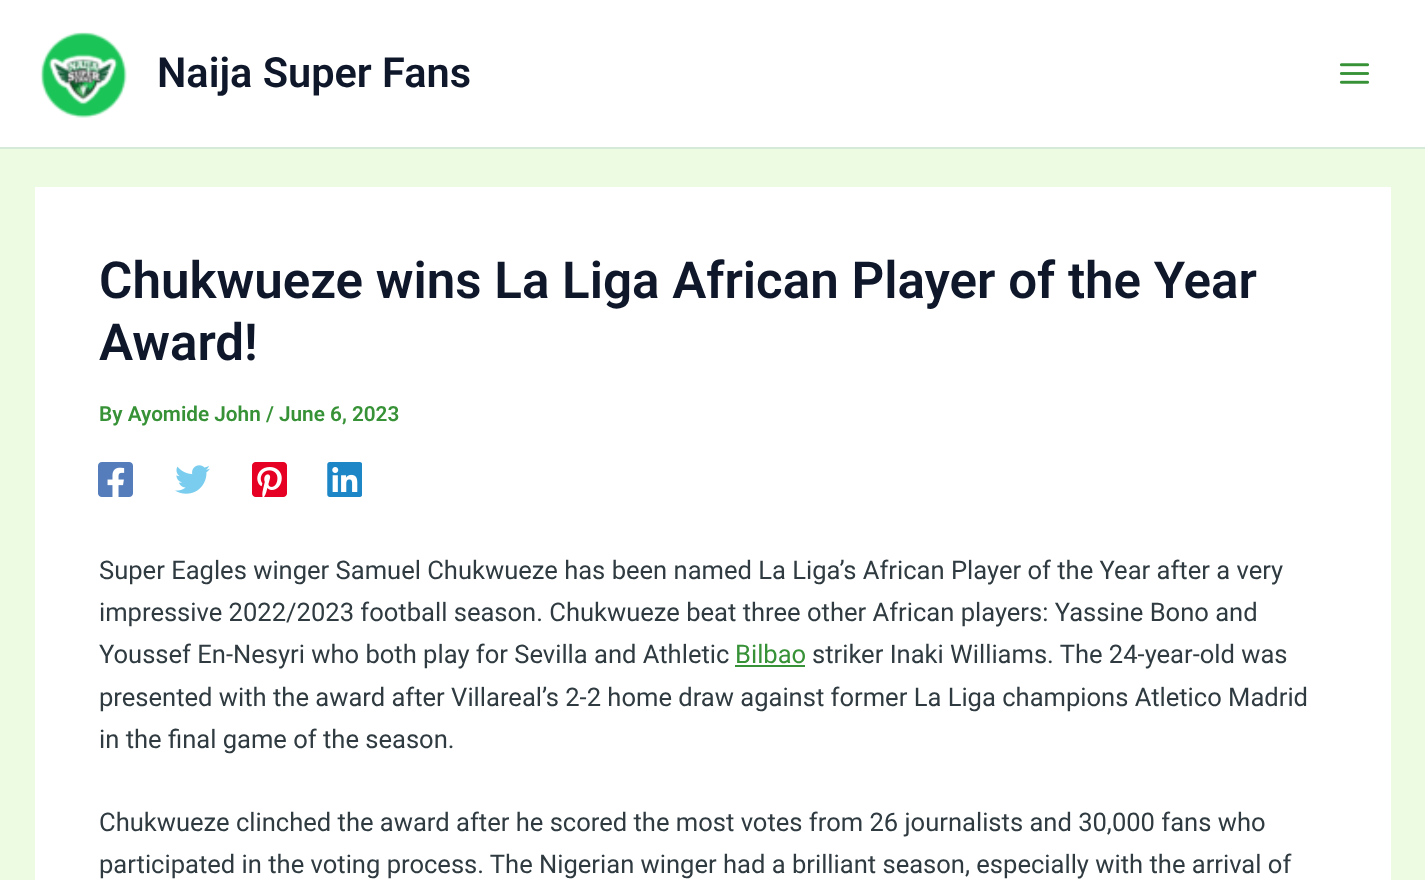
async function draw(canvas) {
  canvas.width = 1425;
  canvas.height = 880;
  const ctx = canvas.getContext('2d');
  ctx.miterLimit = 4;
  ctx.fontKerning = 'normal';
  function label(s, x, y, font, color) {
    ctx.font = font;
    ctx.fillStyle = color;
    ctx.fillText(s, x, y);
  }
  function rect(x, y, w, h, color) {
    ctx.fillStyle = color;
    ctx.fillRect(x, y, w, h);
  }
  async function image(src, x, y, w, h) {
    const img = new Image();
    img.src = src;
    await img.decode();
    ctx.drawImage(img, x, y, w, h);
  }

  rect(0, 0, 1425, 880, '#edfbe2');
  rect(0, 0, 1425, 147, '#fff');
  rect(0, 147, 1425, 2, '#d5ead8');
  await image('assets/img1.png', 40, 32, 87, 86);
  label('Naija Super Fans', 157, 87, '600 41.5px Roboto', '#0f172a');
  await image('assets/img2.png', 1339, 63, 31, 21);
  rect(35, 187, 1356, 693, '#fff');
  label('Chukwueze wins La Liga African Player of the Year', 99, 298, '600 51.1px Roboto', '#0f172a');
  label('Award!', 99, 360, '600 51.1px Roboto', '#0f172a');
  label('By Ayomide John / June 6, 2023', 99, 421, '600 20.75px Roboto', '#379237');
  await image('assets/img3.png', 98, 462, 35, 35);
  await image('assets/img4.png', 175, 465, 35, 29);
  await image('assets/img5.png', 252, 462, 35, 35);
  await image('assets/img6.png', 327, 462, 35, 35);
  label('Super Eagles winger Samuel Chukwueze has been named La Liga’s African Player of the Year after a very', 99, 579, '25.55px Roboto', '#2f3b40');
  label('impressive 2022/2023 football season. Chukwueze beat three other African players: Yassine Bono and', 99, 621, '25.55px Roboto', '#2f3b40');
  label('Youssef En-Nesyri who both play for Sevilla and Athletic', 99, 663, '25.55px Roboto', '#2f3b40');
  label('Bilbao', 735, 663, '25.55px Roboto', '#379237');
  rect(735, 665, 70, 2, '#379237');
  label('striker Inaki Williams. The 24-year-old was', 812, 663, '25.55px Roboto', '#2f3b40');
  label('presented with the award after Villareal’s 2-2 home draw against former La Liga champions Atletico Madrid', 99, 706, '25.55px Roboto', '#2f3b40');
  label('in the final game of the season.', 99, 748, '25.55px Roboto', '#2f3b40');
  label('Chukwueze clinched the award after he scored the most votes from 26 journalists and 30,000 fans who', 99, 831, '25.55px Roboto', '#2f3b40');
  label('participated in the voting process. The Nigerian winger had a brilliant season, especially with the arrival of', 99, 873, '25.55px Roboto', '#2f3b40');
}

draw(document.querySelector('canvas'));
